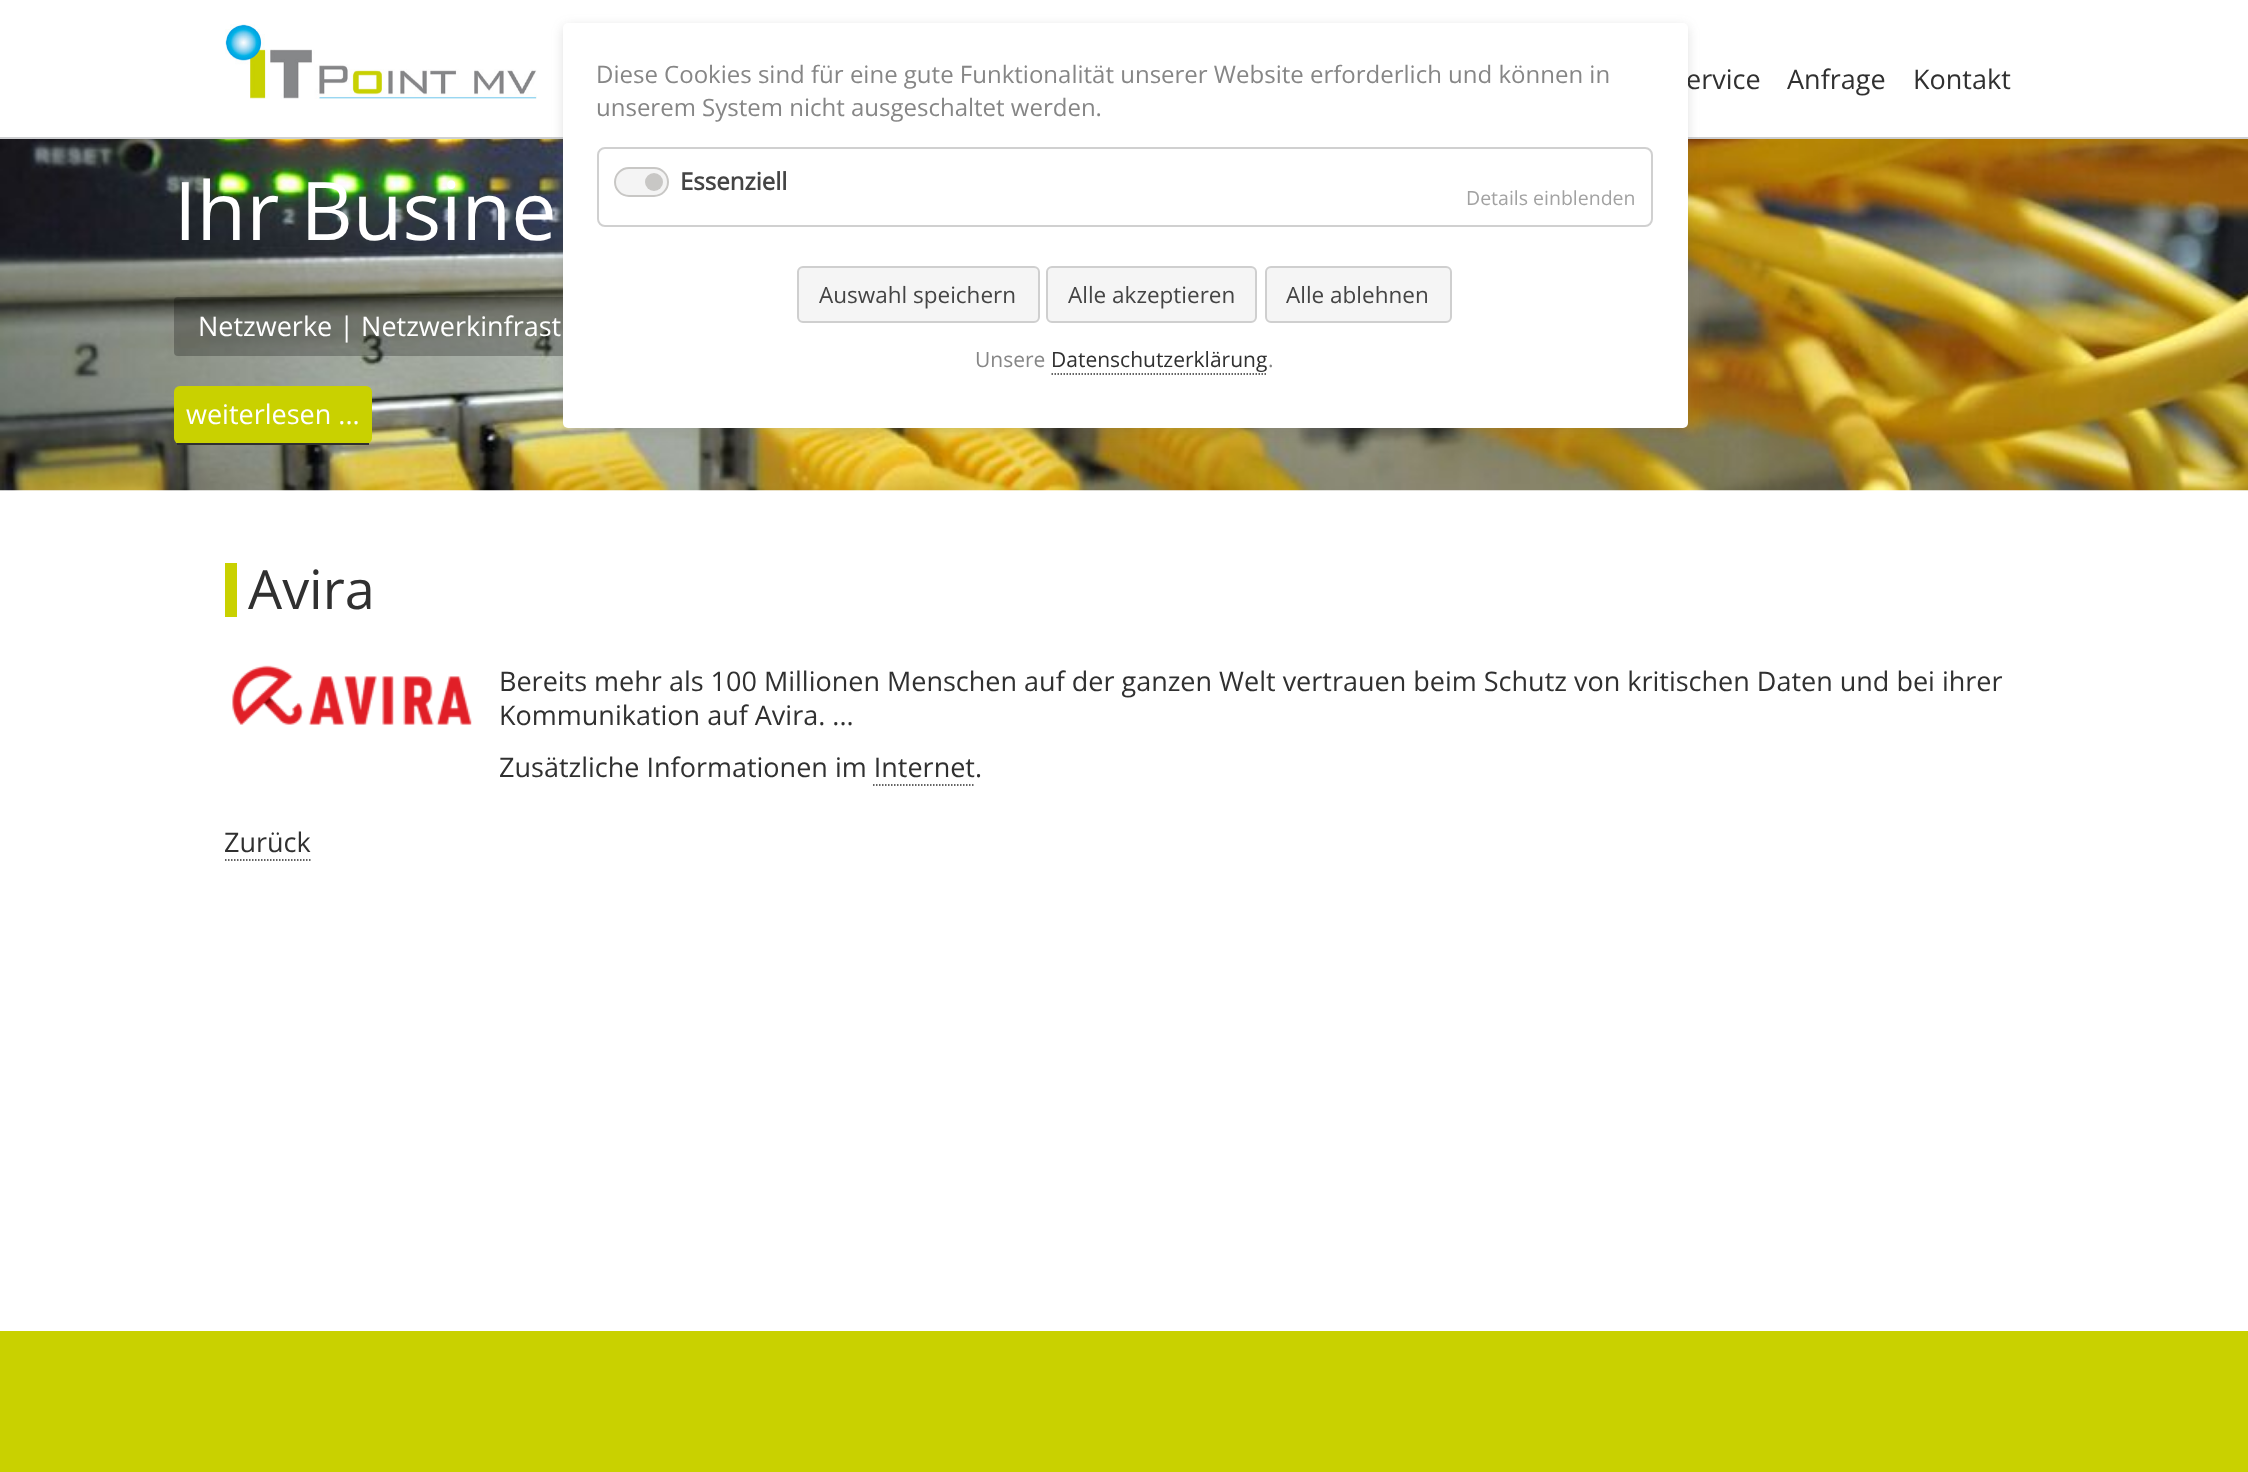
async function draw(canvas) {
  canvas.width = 2248;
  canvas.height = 1472;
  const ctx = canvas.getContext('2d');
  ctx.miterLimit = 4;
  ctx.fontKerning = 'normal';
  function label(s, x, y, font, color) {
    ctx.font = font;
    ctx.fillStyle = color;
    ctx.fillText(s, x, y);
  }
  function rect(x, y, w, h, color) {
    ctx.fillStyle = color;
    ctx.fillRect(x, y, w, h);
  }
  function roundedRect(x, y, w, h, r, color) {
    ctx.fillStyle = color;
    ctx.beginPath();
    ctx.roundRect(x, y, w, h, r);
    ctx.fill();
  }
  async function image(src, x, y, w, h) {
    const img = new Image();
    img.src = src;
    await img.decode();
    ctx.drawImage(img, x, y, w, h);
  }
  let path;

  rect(0, 0, 2248, 1472, '#fff');
  rect(0, 137, 2248, 2, '#cecfd1');
  await image('assets/img2.png', 0, 139, 2248, 352);
  roundedRect(174, 297, 815, 59, 4, '#00000040');
  ctx.fillStyle = '#63636333';
  ctx.filter = 'blur(6px)';
  ctx.beginPath();
  ctx.roundRect(563, 26, 1125, 405, 5);
  ctx.fill();
  ctx.filter = 'none';
  label('ervice', 1686, 89, '27px Open Sans', '#303030');
  roundedRect(563, 23, 1125, 405, 5, '#fff');
  label('Diese Cookies sind für eine gute Funktionalität unserer Website erforderlich und können in', 596, 83, '24px Open Sans', '#868686');
  label('unserem System nicht ausgeschaltet werden.', 596, 116, '24px Open Sans', '#868686');
  ctx.beginPath();
  ctx.roundRect(598, 148, 1054, 78, 7);
  ctx.strokeStyle = '#d0d0d0';
  ctx.lineWidth = 2;
  ctx.stroke();
  ctx.fillStyle = '#f4f4f4';
  ctx.beginPath();
  ctx.roundRect(615, 168, 53, 28, 14);
  ctx.fill();
  ctx.strokeStyle = '#c8c7c5';
  ctx.stroke();
  label('Essenziell', 680, 190, 'bold 24px Open Sans', '#444');
  ctx.fillStyle = '#c8c7c5';
  ctx.beginPath();
  ctx.arc(654, 182, 9, 0, 2 * Math.PI);
  ctx.fill();
  label('Details einblenden', 1466, 205, '19.5px Open Sans', '#a2a2a2');
  ctx.fillStyle = '#f5f5f5';
  ctx.beginPath();
  ctx.roundRect(798, 267, 241, 55, 5);
  ctx.fill();
  ctx.strokeStyle = '#cfcfcf';
  ctx.stroke();
  label('Auswahl speichern', 819, 303, '22.5px Open Sans', '#444');
  ctx.fillStyle = '#f5f5f5';
  ctx.beginPath();
  ctx.roundRect(1047, 267, 209, 55, 5);
  ctx.fill();
  ctx.stroke();
  label('Alle akzeptieren', 1068, 303, '22.5px Open Sans', '#444');
  ctx.fillStyle = '#f5f5f5';
  ctx.beginPath();
  ctx.roundRect(1266, 267, 185, 55, 5);
  ctx.fill();
  ctx.stroke();
  label('Alle ablehnen', 1286, 303, '22.5px Open Sans', '#444');
  label('Unsere', 975, 367, '21px Open Sans', '#868686');
  label('Datenschutzerklärung', 1051, 367, '21px Open Sans', '#303030');
  path = new Path2D('M1051.5 374H1267.5');
  ctx.strokeStyle = '#303030';
  ctx.lineWidth = 1.5;
  ctx.setLineDash([1.5, 1.5]);
  ctx.stroke(path);
  label('.', 1268, 367, '21px Open Sans', '#868686');
  await image('assets/img1.png', 225, 24, 312, 75);
  label('Anfrage', 1787, 89, '27px Open Sans', '#303030');
  label('Kontakt', 1913, 89, '27px Open Sans', '#303030');
  label('Ihr Busine', 174, 240, '81px Open Sans', '#fff');
  label('Netzwerke | Netzwerkinfrast', 198, 336, '27px Open Sans', '#fff');
  roundedRect(174, 386, 198, 58, 6, '#c9d100');
  rect(177, 443, 192, 2, '#303030');
  label('weiterlesen ...', 186, 424, '27px Open Sans', '#fff');
  rect(225, 563, 12, 54, '#c9d100');
  label('Avira', 248, 609, '54px Open Sans', '#303030');
  await image('assets/img3.png', 232, 665, 240, 60);
  label('Bereits mehr als 100 Millionen Menschen auf der ganzen Welt vertrauen beim Schutz von kritischen Daten und bei ihrer', 499, 691, '27px Open Sans', '#303030');
  label('Kommunikation auf Avira. ...', 499, 725, '27px Open Sans', '#303030');
  label('Zusätzliche Informationen im Internet.', 499, 777, '27px Open Sans', '#303030');
  path = new Path2D('M873 785H975');
  ctx.stroke(path);
  label('Zurück', 224, 852, '27px Open Sans', '#303030');
  path = new Path2D('M225 860H310.5');
  ctx.stroke(path);
  rect(0, 1331, 2248, 141, '#c9d100');
}

draw(document.querySelector('canvas'));
